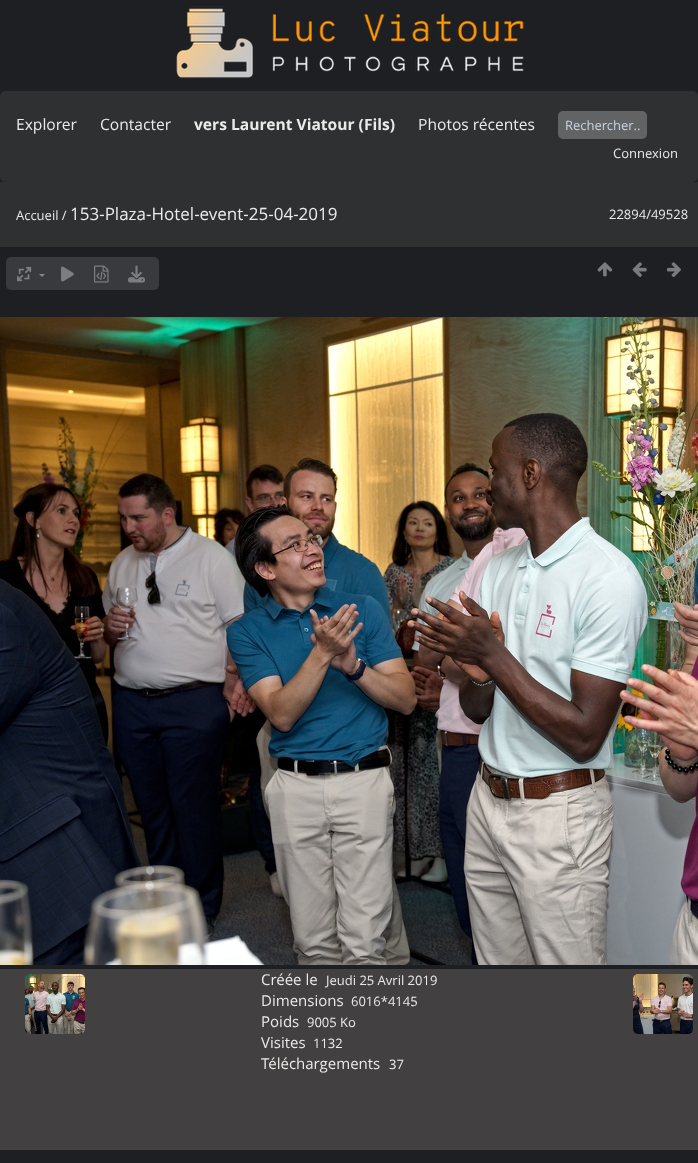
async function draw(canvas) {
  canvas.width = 698;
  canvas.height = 1163;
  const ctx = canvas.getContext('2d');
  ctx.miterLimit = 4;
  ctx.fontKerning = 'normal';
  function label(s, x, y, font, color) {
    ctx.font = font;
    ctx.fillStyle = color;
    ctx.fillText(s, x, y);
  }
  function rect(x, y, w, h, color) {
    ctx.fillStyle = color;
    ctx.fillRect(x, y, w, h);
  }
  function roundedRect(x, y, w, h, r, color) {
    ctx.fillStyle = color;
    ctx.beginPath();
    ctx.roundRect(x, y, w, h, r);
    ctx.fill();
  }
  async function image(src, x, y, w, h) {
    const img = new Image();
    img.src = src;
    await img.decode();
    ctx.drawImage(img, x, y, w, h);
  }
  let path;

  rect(0, 0, 698, 1163, '#1e1f23');
  await image('assets/img1.png', 176, 6, 348, 72);
  roundedRect(0, 91, 698, 91, 5, '#2f3032');
  label('Explorer', 16, 130, '15.6px Open Sans', '#eaeae9');
  label('Contacter', 100, 130, '15.6px Open Sans', '#eaeae9');
  label('vers Laurent Viatour (Fils)', 194, 130, 'bold 15.6px Open Sans', '#eaeae9');
  label('Photos récentes', 418, 130, '15.6px Open Sans', '#eaeae9');
  roundedRect(558, 111, 89, 28, 5, '#616364');
  label('Rechercher..', 565, 130, '13px Open Sans', '#c7d3e1');
  label('Connexion', 613, 158, '13px Open Sans', '#eaeae9');
  rect(0, 182, 698, 65, '#2f3032');
  label('Accueil /', 16, 220, '13px Open Sans', '#eaeae9');
  label('153-Plaza-Hotel-event-25-04-2019', 70, 220, '17px Open Sans', '#eaeae9');
  label('22894/49528', 609, 219, '13px Open Sans', '#eaeae9');
  roundedRect(6, 257, 153, 33, 5, '#393a3d');
  await image('assets/img2.png', 17, 266, 15, 16);
  ctx.fillStyle = '#848588';
  path = new Path2D('M39 274H45L42 277Z');
  ctx.fill(path);
  await image('assets/img3.png', 61, 266, 13, 16);
  await image('assets/img4.png', 94, 265, 15, 18);
  await image('assets/img5.png', 128, 265, 17, 18);
  await image('assets/img6.png', 597, 262, 16, 15);
  await image('assets/img7.png', 632, 262, 15, 15);
  await image('assets/img8.png', 667, 262, 14, 15);
  await image('assets/img9.png', 0, 317, 698, 648);
  rect(0, 969, 698, 181, '#424040');
  label('Créée le', 261, 985, '15px Open Sans', '#eaeae9');
  label('Jeudi 25 Avril 2019', 326, 985, '13px Open Sans', '#eaeae9');
  label('Dimensions', 261, 1006, '15px Open Sans', '#eaeae9');
  label('6016*4145', 351, 1006, '13px Open Sans', '#eaeae9');
  label('Poids', 261, 1027, '15px Open Sans', '#eaeae9');
  label('9005 Ko', 307, 1027, '13px Open Sans', '#eaeae9');
  label('Visites', 261, 1048, '15px Open Sans', '#eaeae9');
  label('1132', 313, 1048, '13px Open Sans', '#eaeae9');
  label('Téléchargements', 261, 1069, '15px Open Sans', '#eaeae9');
  label('37', 389, 1069, '13px Open Sans', '#eaeae9');
  await image('assets/img10.png', 25, 974, 60, 60);
  await image('assets/img11.png', 633, 974, 60, 60);
}

draw(document.querySelector('canvas'));
